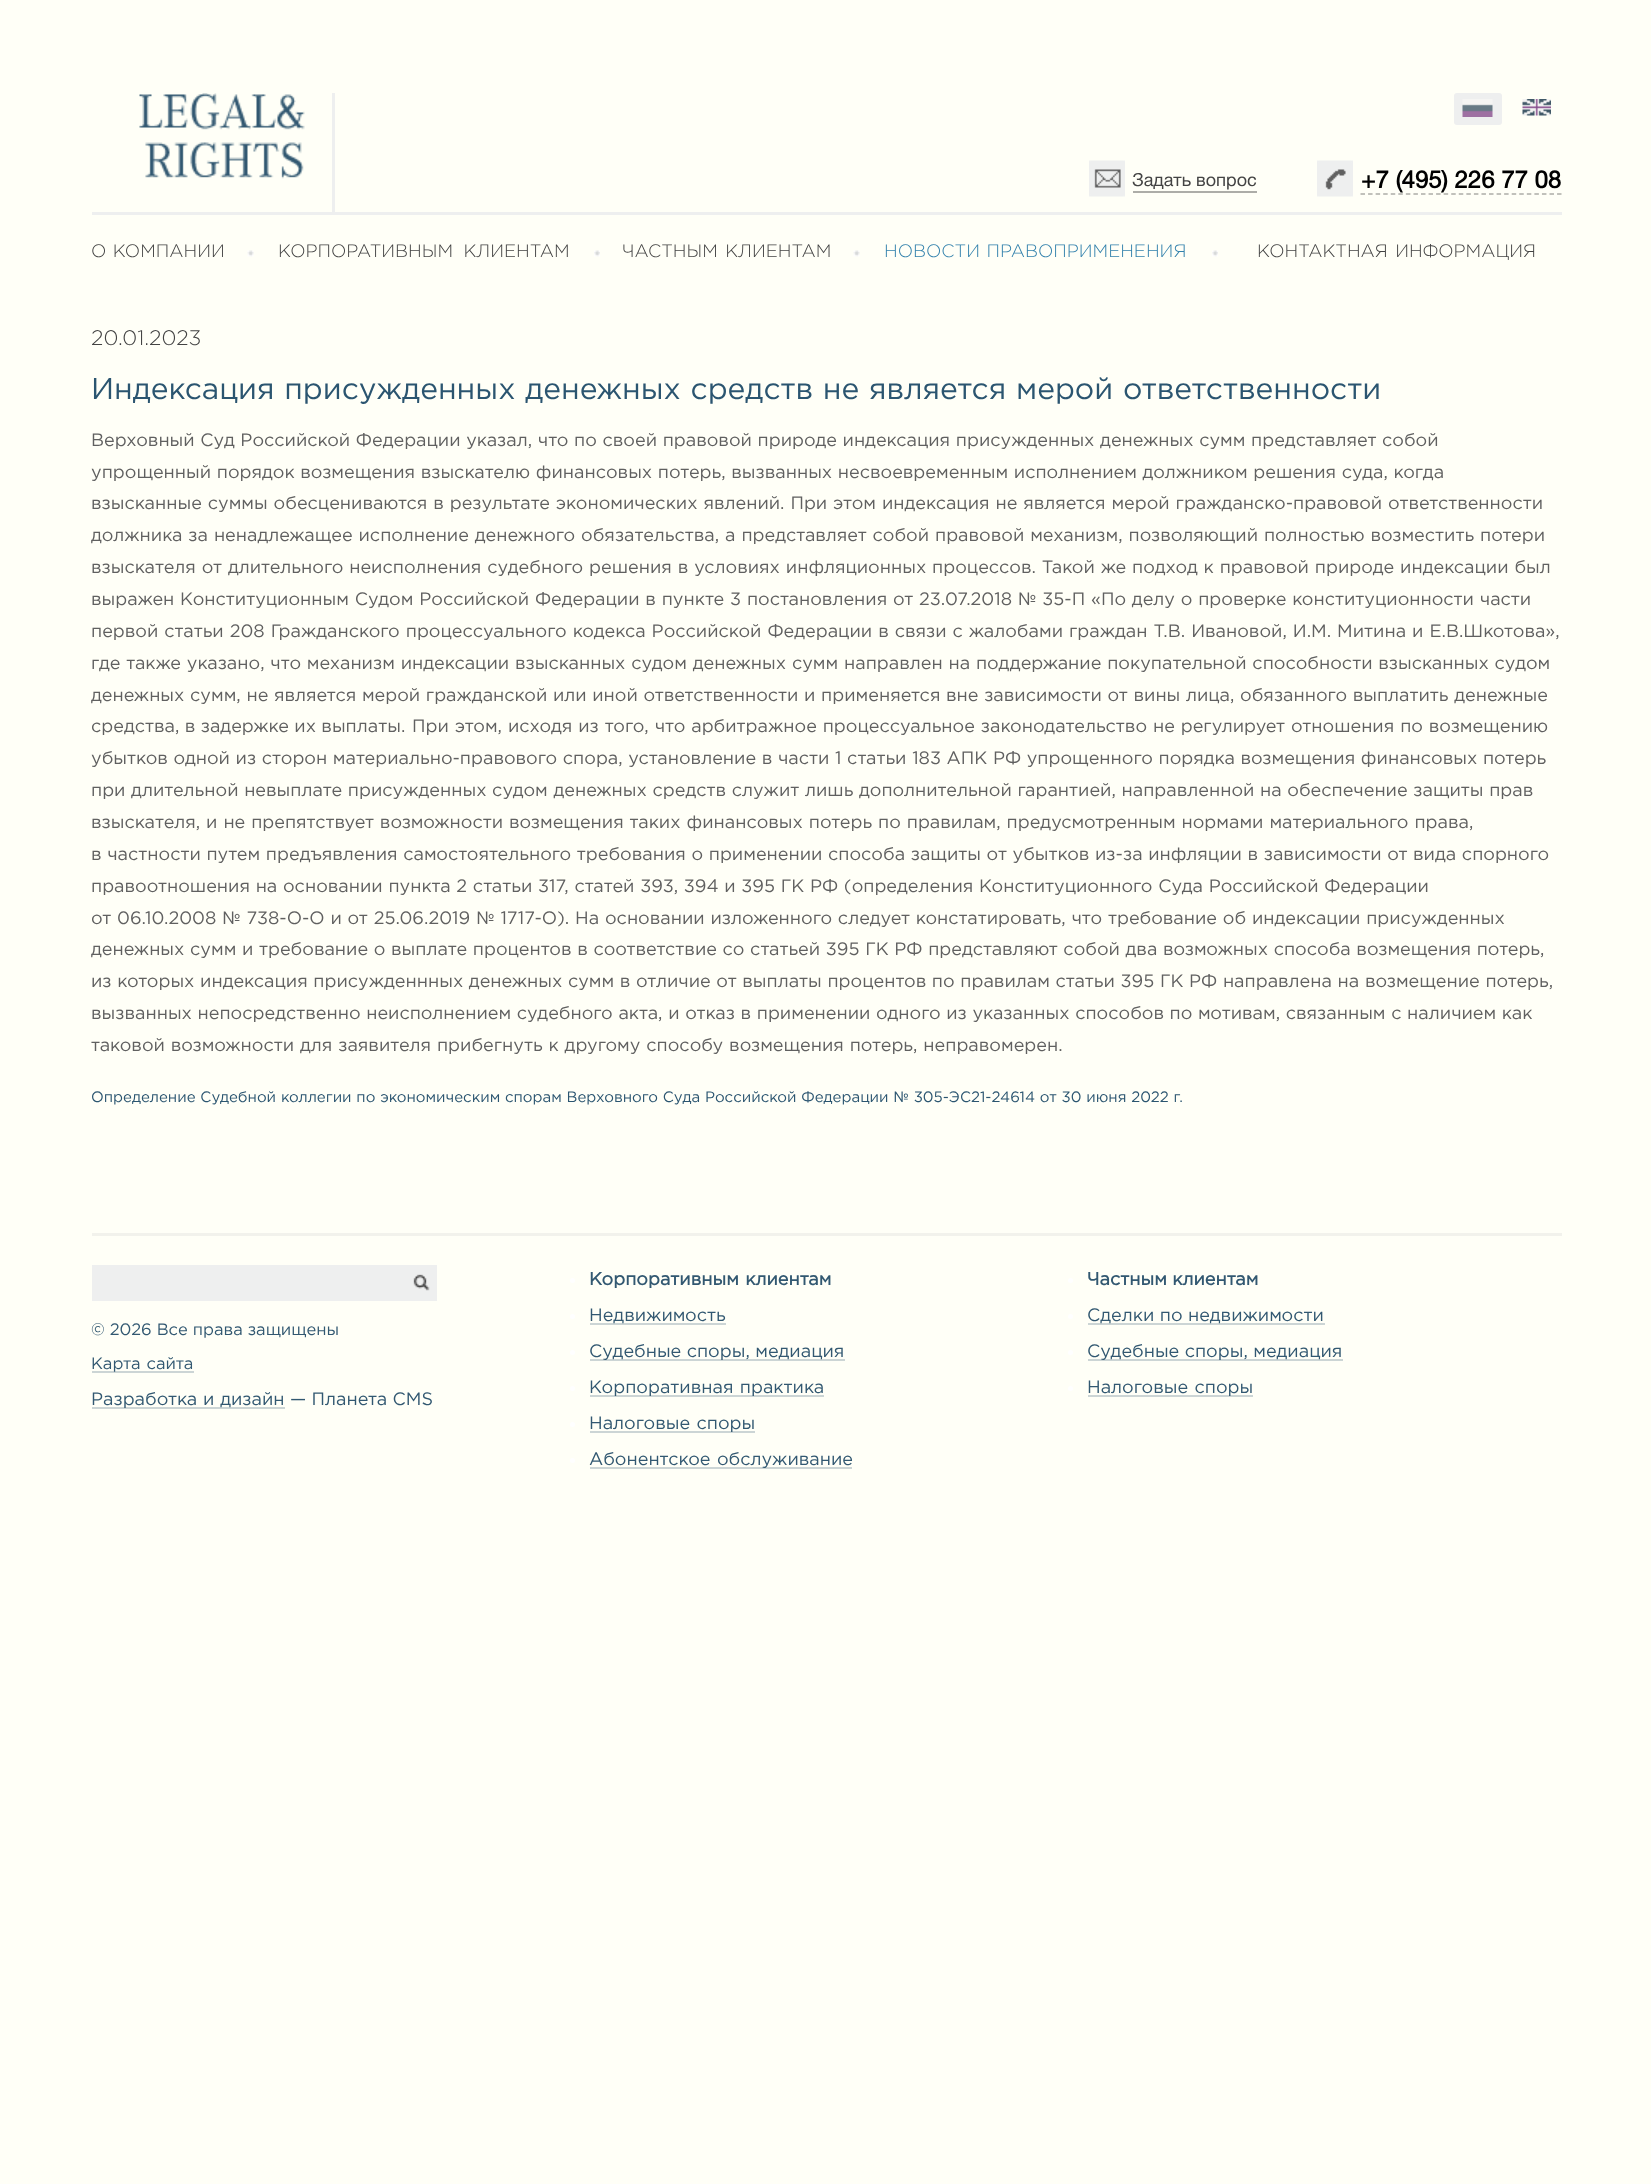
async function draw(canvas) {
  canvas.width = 1651;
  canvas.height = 2184;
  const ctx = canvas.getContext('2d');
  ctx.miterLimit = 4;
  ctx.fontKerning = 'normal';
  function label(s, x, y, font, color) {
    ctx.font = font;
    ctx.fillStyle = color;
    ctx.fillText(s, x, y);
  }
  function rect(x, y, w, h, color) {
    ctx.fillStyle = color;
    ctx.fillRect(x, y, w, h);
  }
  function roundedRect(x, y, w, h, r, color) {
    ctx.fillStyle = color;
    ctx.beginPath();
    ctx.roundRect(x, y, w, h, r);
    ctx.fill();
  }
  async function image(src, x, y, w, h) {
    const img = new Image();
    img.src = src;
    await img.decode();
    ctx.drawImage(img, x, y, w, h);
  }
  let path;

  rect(0, 0, 1651, 2184, '#fffff7');
  rect(92, 212, 1470, 3, '#eeefef');
  rect(332, 93, 3, 119, '#eeefef');
  await image('assets/img1.png', 139, 93, 166, 86);
  roundedRect(1454, 93, 48, 32, 3, '#eeefef');
  await image('assets/img2.png', 1462, 99, 31, 18);
  await image('assets/img3.png', 1522, 99, 29, 17);
  await image('assets/img4.png', 1089, 160, 36, 37);
  label('Задать вопрос', 1132, 186, '18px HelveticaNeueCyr', '#434343');
  rect(1133, 191, 124, 2, '#adada8');
  await image('assets/img5.png', 1317, 160, 36, 37);
  label('+7 (495) 226 77 08', 1361, 188, 'bold 24px HelveticaNeueCyr', '#000');
  path = new Path2D('M1360.5 194H1561.5');
  ctx.strokeStyle = '#adada8';
  ctx.lineWidth = 1.5;
  ctx.setLineDash([4.5, 3.06]);
  ctx.stroke(path);
  ctx.wordSpacing = '1px';
  label('О КОМПАНИИ', 91, 257, '300 18px Gotham', '#434343');
  await image('assets/img6.png', 247, 250, 7, 7);
  ctx.wordSpacing = '5px';
  label('КОРПОРАТИВНЫМ КЛИЕНТАМ', 278, 257, '300 18px Gotham', '#434343');
  await image('assets/img7.png', 594, 250, 6, 7);
  ctx.wordSpacing = '2px';
  label('ЧАСТНЫМ КЛИЕНТАМ', 622, 257, '300 18px Gotham', '#434343');
  await image('assets/img6.png', 853, 250, 7, 7);
  ctx.wordSpacing = '1px';
  label('НОВОСТИ ПРАВОПРИМЕНЕНИЯ', 884, 257, '300 18px Gotham', '#3281ac');
  await image('assets/img7.png', 1212, 250, 6, 7);
  ctx.wordSpacing = '2px';
  label('КОНТАКТНАЯ ИНФОРМАЦИЯ', 1257, 257, '300 18px Gotham', '#434343');
  ctx.wordSpacing = '0px';
  label('20.01.2023', 91, 345, '300 21px Gotham', '#434343');
  ctx.wordSpacing = '0.75px';
  label('Индексация присужденных денежных средств не является мерой ответственности', 91, 399, '30px Gotham', '#2b5570');
  ctx.wordSpacing = '0.25px';
  label('Верховный Суд Российской Федерации указал, что по своей правовой природе индексация присужденных денежных сумм представляет собой', 91, 446, '18px Gotham', '#606060');
  label('упрощенный порядок возмещения взыскателю финансовых потерь, вызванных несвоевременным исполнением должником решения суда, когда', 91, 478, '18px Gotham', '#606060');
  ctx.wordSpacing = '0.5px';
  label('взысканные суммы обесцениваются в результате экономических явлений. При этом индексация не является мерой гражданско-правовой ответственности', 91, 509, '18px Gotham', '#606060');
  label('должника за ненадлежащее исполнение денежного обязательства, а представляет собой правовой механизм, позволяющий полностью возместить потери', 91, 541, '18px Gotham', '#606060');
  label('взыскателя от длительного неисполнения судебного решения в условиях инфляционных процессов. Такой же подход к правовой природе индексации был', 91, 573, '18px Gotham', '#606060');
  ctx.wordSpacing = '0.4px';
  label('выражен Конституционным Судом Российской Федерации в пункте 3 постановления от 23.07.2018 № 35-П «По делу о проверке конституционности части', 91, 605, '18px Gotham', '#606060');
  ctx.wordSpacing = '0.6px';
  label('первой статьи 208 Гражданского процессуального кодекса Российской Федерации в связи с жалобами граждан Т.В. Ивановой, И.М. Митина и Е.В.Шкотова»,', 91, 637, '18px Gotham', '#606060');
  ctx.wordSpacing = '0.4px';
  label('где также указано, что механизм индексации взысканных судом денежных сумм направлен на поддержание покупательной способности взысканных судом', 91, 669, '18px Gotham', '#606060');
  ctx.wordSpacing = '0.25px';
  label('денежных сумм, не является мерой гражданской или иной ответственности и применяется вне зависимости от вины лица, обязанного выплатить денежные', 91, 701, '18px Gotham', '#606060');
  ctx.wordSpacing = '0px';
  label('средства, в задержке их выплаты.', 91, 732, '18px Gotham', '#606060');
  ctx.wordSpacing = '0.5px';
  label('При этом, исходя из того, что арбитражное процессуальное законодательство не регулирует отношения по возмещению', 412, 732, '18px Gotham', '#606060');
  ctx.wordSpacing = '0.25px';
  label('убытков одной из сторон материально-правового спора, установление в части 1 статьи 183 АПК РФ упрощенного порядка возмещения финансовых потерь', 91, 764, '18px Gotham', '#606060');
  label('при длительной невыплате присужденных судом денежных средств служит лишь дополнительной гарантией, направленной на обеспечение защиты прав', 91, 796, '18px Gotham', '#606060');
  ctx.wordSpacing = '0.5px';
  label('взыскателя, и не препятствует возможности возмещения таких финансовых потерь по правилам, предусмотренным нормами материального права,', 91, 828, '18px Gotham', '#606060');
  ctx.wordSpacing = '0.25px';
  label('в частности путем предъявления самостоятельного требования о применении способа защиты от убытков из-за инфляции в зависимости от вида спорного', 91, 860, '18px Gotham', '#606060');
  ctx.wordSpacing = '0.3px';
  label('правоотношения на основании пункта 2 статьи 317, статей 393, 394 и 395 ГК РФ (определения Конституционного Суда Российской Федерации', 91, 892, '18px Gotham', '#606060');
  ctx.wordSpacing = '0.4px';
  label('от 06.10.2008 № 738-О-О и от 25.06.2019 № 1717-О). На основании изложенного следует констатировать, что требование об индексации присужденных', 91, 924, '18px Gotham', '#606060');
  ctx.wordSpacing = '0.25px';
  label('денежных сумм и требование о выплате процентов в соответствие со статьей 395 ГК РФ представляют собой два возможных способа возмещения потерь,', 91, 955, '18px Gotham', '#606060');
  label('из которых индексация присужденнных денежных сумм в отличие от выплаты процентов по правилам статьи 395 ГК РФ направлена на возмещение потерь,', 91, 987, '18px Gotham', '#606060');
  label('вызванных непосредственно неисполнением судебного акта, и отказ в применении одного из указанных способов по мотивам, связанным с наличием как', 91, 1019, '18px Gotham', '#606060');
  ctx.wordSpacing = '0.5px';
  label('таковой возможности для заявителя прибегнуть к другому способу возмещения потерь, неправомерен.', 91, 1051, '18px Gotham', '#606060');
  ctx.wordSpacing = '0.3px';
  label('Определение Судебной коллегии по экономическим спорам Верховного Суда Российской Федерации № 305-ЭС21-24614 от 30 июня 2022 г.', 91, 1102, '15px Gotham', '#2b5570');
  rect(92, 1233, 1470, 3, '#f2f2ec');
  rect(92, 1265, 345, 36, '#eeefef');
  await image('assets/img8.png', 413, 1274, 17, 17);
  ctx.wordSpacing = '0px';
  label('© 2026 Все права защищены', 91, 1335, '16.5px Gotham', '#325871');
  rect(92, 1371, 102, 2, '#ccd5d5');
  ctx.wordSpacing = '1px';
  label('Карта сайта', 91, 1369, '16.5px Gotham', '#325871');
  rect(92, 1407, 193, 2, '#ccd5d5');
  ctx.wordSpacing = '0.4px';
  label('Разработка и дизайн', 91, 1405, '18px Gotham', '#325871');
  ctx.wordSpacing = '0px';
  label('— Планета CMS', 290, 1405, '18px Gotham', '#325871');
  ctx.fillStyle = '#fff';
  ctx.beginPath();
  ctx.arc(572.5, 1280.5, 2.5, 0, 2 * Math.PI);
  ctx.fill();
  ctx.wordSpacing = '1px';
  label('Корпоративным клиентам', 589, 1285, 'bold 18px Gotham', '#325871');
  ctx.fillStyle = '#fff';
  ctx.beginPath();
  ctx.arc(572.5, 1316.5, 2.5, 0, 2 * Math.PI);
  ctx.fill();
  rect(590, 1323, 136, 2, '#ccd5d5');
  ctx.wordSpacing = '0px';
  label('Недвижимость', 589, 1321, '18px Gotham', '#325871');
  ctx.fillStyle = '#fff';
  ctx.beginPath();
  ctx.arc(572.5, 1352.5, 2.5, 0, 2 * Math.PI);
  ctx.fill();
  rect(590, 1359, 255, 2, '#ccd5d5');
  label('Судебные споры, медиация', 589, 1357, '18px Gotham', '#325871');
  ctx.fillStyle = '#fff';
  ctx.beginPath();
  ctx.arc(572.5, 1388.5, 2.5, 0, 2 * Math.PI);
  ctx.fill();
  rect(590, 1395, 234, 2, '#ccd5d5');
  ctx.wordSpacing = '1px';
  label('Корпоративная практика', 589, 1393, '18px Gotham', '#325871');
  ctx.fillStyle = '#fff';
  ctx.beginPath();
  ctx.arc(572.5, 1424.5, 2.5, 0, 2 * Math.PI);
  ctx.fill();
  rect(590, 1431, 165, 2, '#ccd5d5');
  label('Налоговые споры', 589, 1429, '18px Gotham', '#325871');
  ctx.fillStyle = '#fff';
  ctx.beginPath();
  ctx.arc(572.5, 1460.5, 2.5, 0, 2 * Math.PI);
  ctx.fill();
  rect(590, 1467, 262, 2, '#ccd5d5');
  label('Абонентское обслуживание', 589, 1465, '18px Gotham', '#325871');
  ctx.fillStyle = '#fff';
  ctx.beginPath();
  ctx.arc(1070.5, 1280.5, 2.5, 0, 2 * Math.PI);
  ctx.fill();
  ctx.wordSpacing = '0px';
  label('Частным клиентам', 1087, 1285, 'bold 18px Gotham', '#325871');
  ctx.fillStyle = '#fff';
  ctx.beginPath();
  ctx.arc(1070.5, 1316.5, 2.5, 0, 2 * Math.PI);
  ctx.fill();
  rect(1088, 1323, 237, 2, '#ccd5d5');
  label('Сделки по недвижимости', 1087, 1321, '18px Gotham', '#325871');
  ctx.fillStyle = '#fff';
  ctx.beginPath();
  ctx.arc(1070.5, 1352.5, 2.5, 0, 2 * Math.PI);
  ctx.fill();
  rect(1088, 1359, 255, 2, '#ccd5d5');
  label('Cудебные споры, медиация', 1087, 1357, '18px Gotham', '#325871');
  ctx.fillStyle = '#fff';
  ctx.beginPath();
  ctx.arc(1070.5, 1388.5, 2.5, 0, 2 * Math.PI);
  ctx.fill();
  rect(1088, 1395, 165, 2, '#ccd5d5');
  ctx.wordSpacing = '1px';
  label('Налоговые споры', 1087, 1393, '18px Gotham', '#325871');
}

draw(document.querySelector('canvas'));
